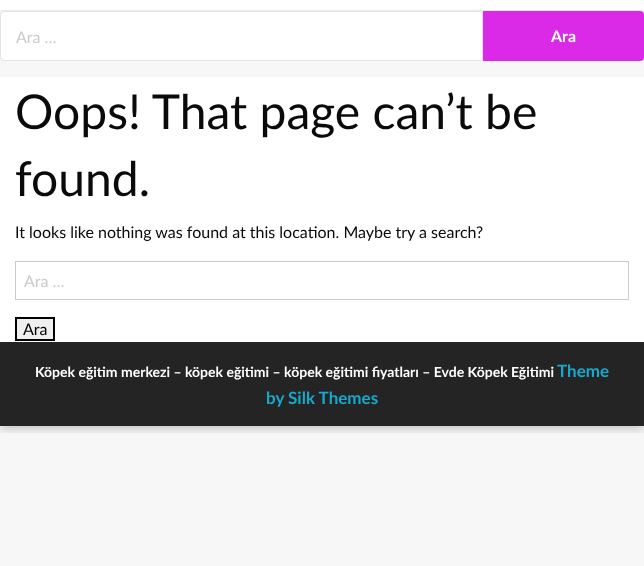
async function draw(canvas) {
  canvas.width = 644;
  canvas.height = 566;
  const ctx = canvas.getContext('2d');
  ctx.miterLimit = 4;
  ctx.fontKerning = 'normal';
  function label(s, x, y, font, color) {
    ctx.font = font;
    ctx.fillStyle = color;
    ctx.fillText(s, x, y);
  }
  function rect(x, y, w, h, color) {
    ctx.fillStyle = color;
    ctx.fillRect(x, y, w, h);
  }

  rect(0, 0, 644, 566, '#f7f7f7');
  ctx.save();
  ctx.beginPath();
  ctx.rect(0, 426, 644, 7);
  ctx.clip();
  ctx.fillStyle = '#00000017';
  ctx.filter = 'blur(5px)';
  ctx.beginPath();
  ctx.rect(0, 3, 644, 426);
  ctx.fill();
  ctx.filter = 'none';
  ctx.fillStyle = '#0000001a';
  ctx.filter = 'blur(4px)';
  ctx.beginPath();
  ctx.rect(0, 4, 644, 426);
  ctx.fill();
  ctx.filter = 'none';
  ctx.restore();
  rect(0, 0, 644, 10, '#fff');
  rect(0, 10, 644, 1, '#ecede7');
  ctx.fillStyle = '#fff';
  ctx.beginPath();
  ctx.roundRect(0.5, 11.5, 482, 49, [3.5, 0, 0, 3.5]);
  ctx.fill();
  ctx.strokeStyle = '#e4e3e3';
  ctx.stroke();
  label('Ara …', 16, 43, '16px Lato', '#cacaca');
  ctx.fillStyle = '#db29e8';
  ctx.beginPath();
  ctx.roundRect(483, 11, 161, 50, [0, 4, 4, 0]);
  ctx.fill();
  label('Ara', 551, 42, 'bold 16px Lato', '#fff');
  rect(0, 77, 644, 265, '#fff');
  label('Oops! That page can’t be', 15, 129, '48px Lato', '#0a0a0a');
  label('found.', 15, 196, '48px Lato', '#0a0a0a');
  label('It looks like nothing was found at this location. Maybe try a search?', 15, 238, '16px Lato', '#0a0a0a');
  ctx.strokeStyle = '#cacaca';
  ctx.strokeRect(15.5, 261.5, 613, 38);
  label('Ara …', 24, 287, '16px Lato', '#cacaca');
  ctx.fillStyle = '#efefef';
  ctx.beginPath();
  ctx.rect(16, 318, 38, 22);
  ctx.fill();
  ctx.strokeStyle = '#000';
  ctx.lineWidth = 2;
  ctx.stroke();
  label('Ara', 23, 335, '16px Lato', '#000');
  rect(0, 342, 644, 84, '#242424');
  label('Köpek eğitim merkezi – köpek eğitimi – köpek eğitimi fiyatları – Evde Köpek Eğitimi', 35, 377, 'bold 14px Lato', '#fff');
  label('Theme', 557, 377, 'bold 17px Lato', '#17a9cd');
  label('by Silk Themes', 266, 404, 'bold 17px Lato', '#17a9cd');
}

draw(document.querySelector('canvas'));
